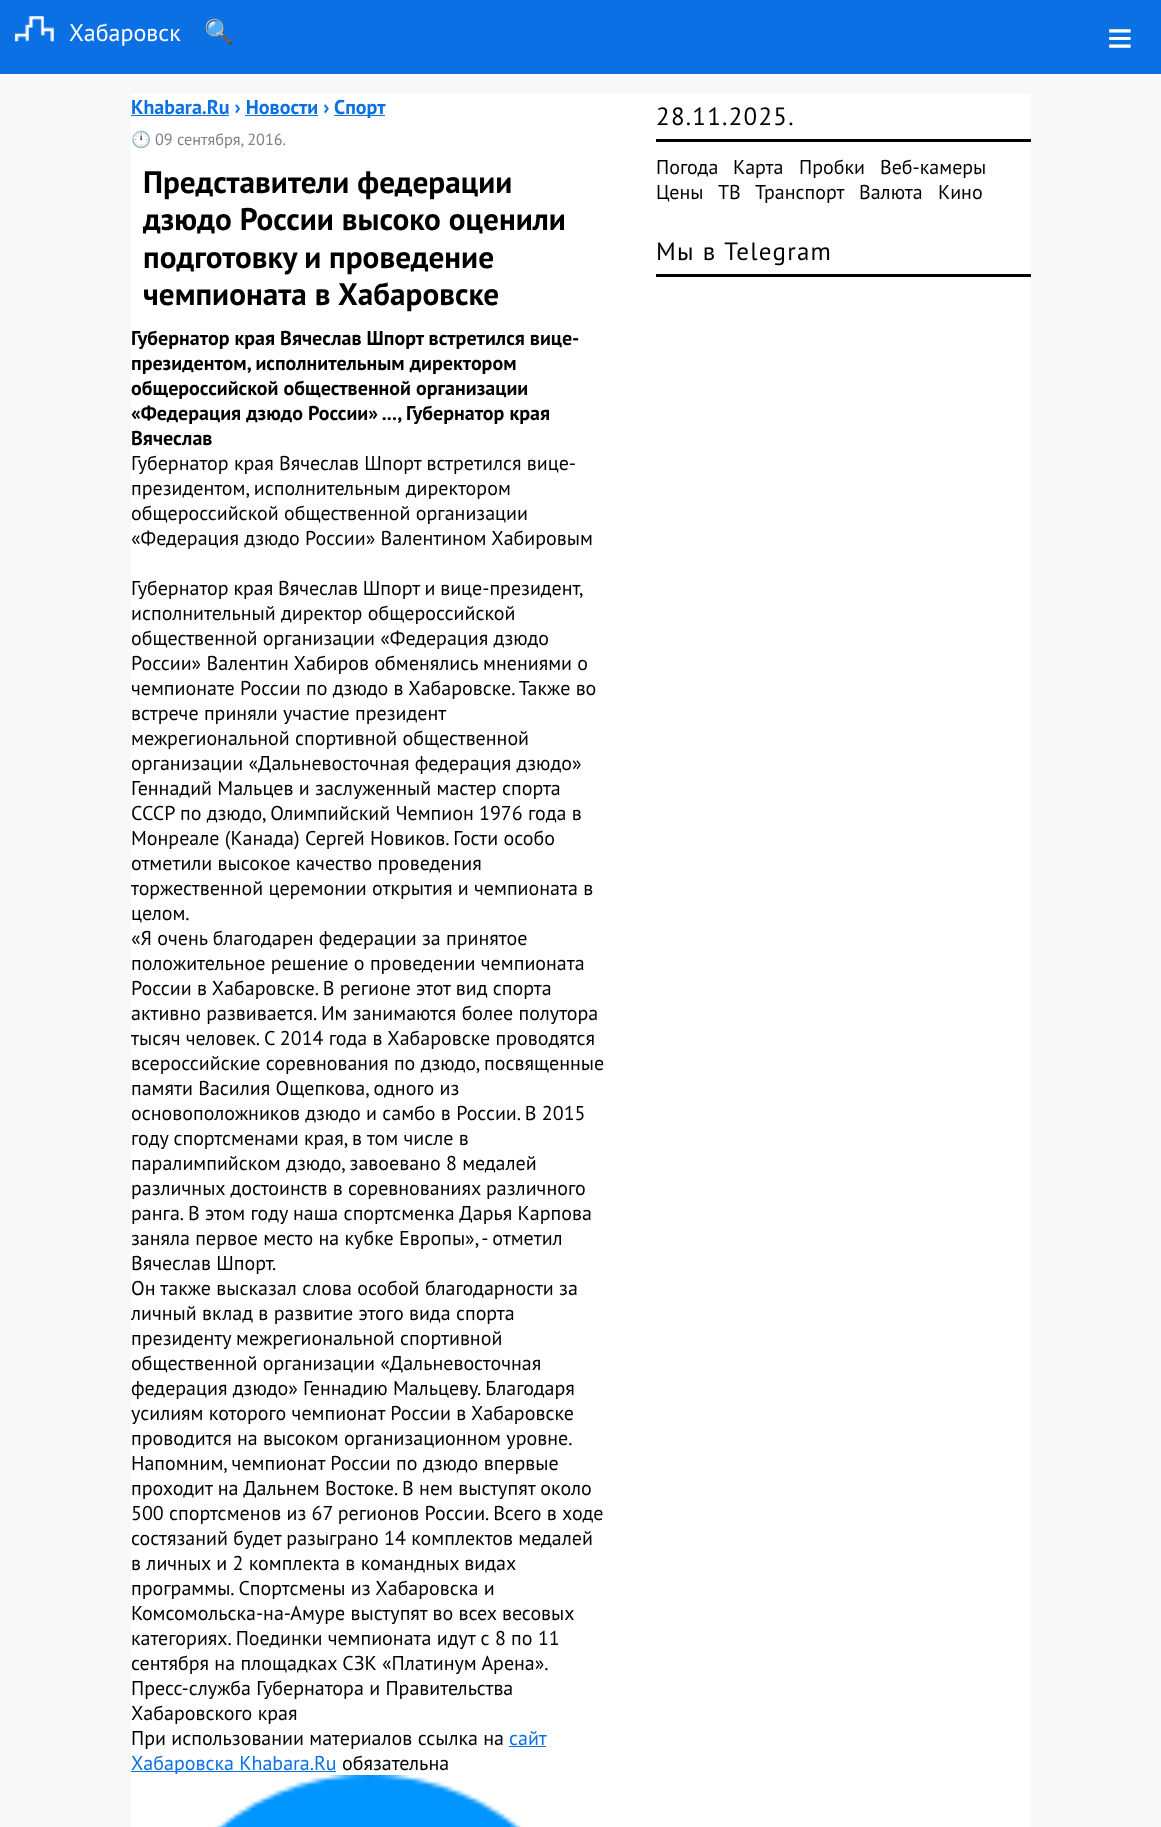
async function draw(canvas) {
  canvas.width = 1161;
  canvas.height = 1827;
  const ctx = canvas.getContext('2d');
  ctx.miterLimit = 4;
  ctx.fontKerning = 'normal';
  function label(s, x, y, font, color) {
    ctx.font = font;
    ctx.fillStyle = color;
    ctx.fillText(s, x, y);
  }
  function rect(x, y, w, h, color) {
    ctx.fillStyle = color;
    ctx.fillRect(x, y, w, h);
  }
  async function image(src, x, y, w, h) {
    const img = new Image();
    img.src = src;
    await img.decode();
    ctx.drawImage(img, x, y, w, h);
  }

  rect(0, 0, 1161, 1827, '#f8f8f8');
  rect(0, 0, 1161, 74, '#0b70e4');
  await image('assets/img1.png', 14, 16, 40, 26);
  label('Хабаровск', 69, 41, '24px PT Sans', '#fff');
  label('🔍', 204, 40, '24px Noto Color Emoji', '#fff');
  label('≡', 1107, 53, '44px Liberation Sans', '#fff');
  rect(131, 94, 900, 1733, '#fff');
  label('Khabara.Ru › Новости ›', 131, 114, 'bold 20px PT Sans', '#0b70e4');
  rect(131, 115, 98, 1, '#0b70e4');
  rect(245, 115, 73, 1, '#0b70e4');
  rect(334, 115, 51, 1, '#0b70e4');
  label('Спорт', 334, 114, 'bold 20px PT Sans', '#0b70e4');
  label('🕛', 131, 145, '16.25px Noto Color Emoji', '#818181');
  label('09 сентября, 2016.', 155, 145, '16.25px PT Sans', '#818181');
  label('Представители федерации', 143, 193, 'bold 31.25px PT Sans', '#000');
  label('дзюдо России высоко оценили', 143, 230, 'bold 31.25px PT Sans', '#000');
  label('подготовку и проведение', 143, 268, 'bold 31.25px PT Sans', '#000');
  label('чемпионата в Хабаровске', 143, 305, 'bold 31.25px PT Sans', '#000');
  label('Губернатор края Вячеслав Шпорт встретился вице-', 131, 345, 'bold 20px PT Sans', '#000');
  label('президентом, исполнительным директором', 131, 370, 'bold 20px PT Sans', '#000');
  label('общероссийской общественной организации', 131, 395, 'bold 20px PT Sans', '#000');
  label('«Федерация дзюдо России» ..., Губернатор края', 131, 420, 'bold 20px PT Sans', '#000');
  label('Вячеслав', 131, 445, 'bold 20px PT Sans', '#000');
  label('Губернатор края Вячеслав Шпорт встретился вице-', 131, 470, '20px PT Sans', '#000');
  label('президентом, исполнительным директором', 131, 495, '20px PT Sans', '#000');
  label('общероссийской общественной организации', 131, 520, '20px PT Sans', '#000');
  label('«Федерация дзюдо России» Валентином Хабировым', 131, 545, '20px PT Sans', '#000');
  ctx.wordSpacing = '-0.5px';
  label('Губернатор края Вячеслав Шпорт и вице-президент,', 131, 595, '20px PT Sans', '#000');
  ctx.wordSpacing = '0px';
  label('исполнительный директор общероссийской', 131, 620, '20px PT Sans', '#000');
  label('общественной организации «Федерация дзюдо', 131, 645, '20px PT Sans', '#000');
  label('России» Валентин Хабиров обменялись мнениями о', 131, 670, '20px PT Sans', '#000');
  label('чемпионате России по дзюдо в Хабаровске. Также во', 131, 695, '20px PT Sans', '#000');
  label('встрече приняли участие президент', 131, 720, '20px PT Sans', '#000');
  label('межрегиональной спортивной общественной', 131, 745, '20px PT Sans', '#000');
  label('организации «Дальневосточная федерация дзюдо»', 131, 770, '20px PT Sans', '#000');
  label('Геннадий Мальцев и заслуженный мастер спорта', 131, 795, '20px PT Sans', '#000');
  label('СССР по дзюдо, Олимпийский Чемпион 1976 года в', 131, 820, '20px PT Sans', '#000');
  label('Монреале (Канада) Сергей Новиков. Гости особо', 131, 845, '20px PT Sans', '#000');
  label('отметили высокое качество проведения', 131, 870, '20px PT Sans', '#000');
  label('торжественной церемонии открытия и чемпионата в', 131, 895, '20px PT Sans', '#000');
  label('целом.', 131, 920, '20px PT Sans', '#000');
  label('«Я очень благодарен федерации за принятое', 131, 945, '20px PT Sans', '#000');
  label('положительное решение о проведении чемпионата', 131, 970, '20px PT Sans', '#000');
  label('России в Хабаровске. В регионе этот вид спорта', 131, 995, '20px PT Sans', '#000');
  label('активно развивается. Им занимаются более полутора', 131, 1020, '20px PT Sans', '#000');
  label('тысяч человек. С 2014 года в Хабаровске проводятся', 131, 1045, '20px PT Sans', '#000');
  label('всероссийские соревнования по дзюдо, посвященные', 131, 1070, '20px PT Sans', '#000');
  label('памяти Василия Ощепкова, одного из', 131, 1095, '20px PT Sans', '#000');
  label('основоположников дзюдо и самбо в России. В 2015', 131, 1120, '20px PT Sans', '#000');
  label('году спортсменами края, в том числе в', 131, 1145, '20px PT Sans', '#000');
  label('паралимпийском дзюдо, завоевано 8 медалей', 131, 1170, '20px PT Sans', '#000');
  label('различных достоинств в соревнованиях различного', 131, 1195, '20px PT Sans', '#000');
  label('ранга. В этом году наша спортсменка Дарья Карпова', 131, 1220, '20px PT Sans', '#000');
  label('заняла первое место на кубке Европы», - отметил', 131, 1245, '20px PT Sans', '#000');
  label('Вячеслав Шпорт.', 131, 1270, '20px PT Sans', '#000');
  label('Он также высказал слова особой благодарности за', 131, 1295, '20px PT Sans', '#000');
  label('личный вклад в развитие этого вида спорта', 131, 1320, '20px PT Sans', '#000');
  label('президенту межрегиональной спортивной', 131, 1345, '20px PT Sans', '#000');
  label('общественной организации «Дальневосточная', 131, 1370, '20px PT Sans', '#000');
  label('федерация дзюдо» Геннадию Мальцеву. Благодаря', 131, 1395, '20px PT Sans', '#000');
  label('усилиям которого чемпионат России в Хабаровске', 131, 1420, '20px PT Sans', '#000');
  label('проводится на высоком организационном уровне.', 131, 1445, '20px PT Sans', '#000');
  label('Напомним, чемпионат России по дзюдо впервые', 131, 1470, '20px PT Sans', '#000');
  label('проходит на Дальнем Востоке. В нем выступят около', 131, 1495, '20px PT Sans', '#000');
  label('500 спортсменов из 67 регионов России. Всего в ходе', 131, 1520, '20px PT Sans', '#000');
  label('состязаний будет разыграно 14 комплектов медалей', 131, 1545, '20px PT Sans', '#000');
  label('в личных и 2 комплекта в командных видах', 131, 1570, '20px PT Sans', '#000');
  label('программы. Спортсмены из Хабаровска и', 131, 1595, '20px PT Sans', '#000');
  label('Комсомольска-на-Амуре выступят во всех весовых', 131, 1620, '20px PT Sans', '#000');
  label('категориях. Поединки чемпионата идут с 8 по 11', 131, 1645, '20px PT Sans', '#000');
  label('сентября на площадках СЗК «Платинум Арена».', 131, 1670, '20px PT Sans', '#000');
  label('Пресс-служба Губернатора и Правительства', 131, 1695, '20px PT Sans', '#000');
  label('Хабаровского края', 131, 1720, '20px PT Sans', '#000');
  label('При использовании материалов ссылка на', 131, 1745, '20px PT Sans', '#000');
  label('сайт', 509, 1745, '20px PT Sans', '#0b70e4');
  rect(509, 1746, 37, 1, '#0b70e4');
  rect(131, 1771, 205, 1, '#0b70e4');
  label('Хабаровска Khabara.Ru', 131, 1770, '20px PT Sans', '#0b70e4');
  label('обязательна', 342, 1770, '20px PT Sans', '#000');
  await image('assets/img2.png', 214, 1775, 310, 52);
  rect(656, 139, 375, 3, '#000');
  ctx.letterSpacing = '1.25px';
  label('28.11.2025.', 656, 125, '25px PT Sans', '#000');
  ctx.letterSpacing = '0px';
  label('Погода', 656, 174, '20px PT Sans', '#000');
  label('Карта', 733, 174, '20px PT Sans', '#000');
  label('Пробки', 799, 174, '20px PT Sans', '#000');
  label('Веб-камеры', 880, 174, '20px PT Sans', '#000');
  label('Цены', 656, 199, '20px PT Sans', '#000');
  label('ТВ', 718, 199, '20px PT Sans', '#000');
  label('Транспорт', 755, 199, '20px PT Sans', '#000');
  label('Валюта', 859, 199, '20px PT Sans', '#000');
  label('Кино', 938, 199, '20px PT Sans', '#000');
  rect(656, 274, 375, 3, '#000');
  ctx.letterSpacing = '1.25px';
  label('Мы в Telegram', 656, 260, '25px PT Sans', '#000');
}

draw(document.querySelector('canvas'));
